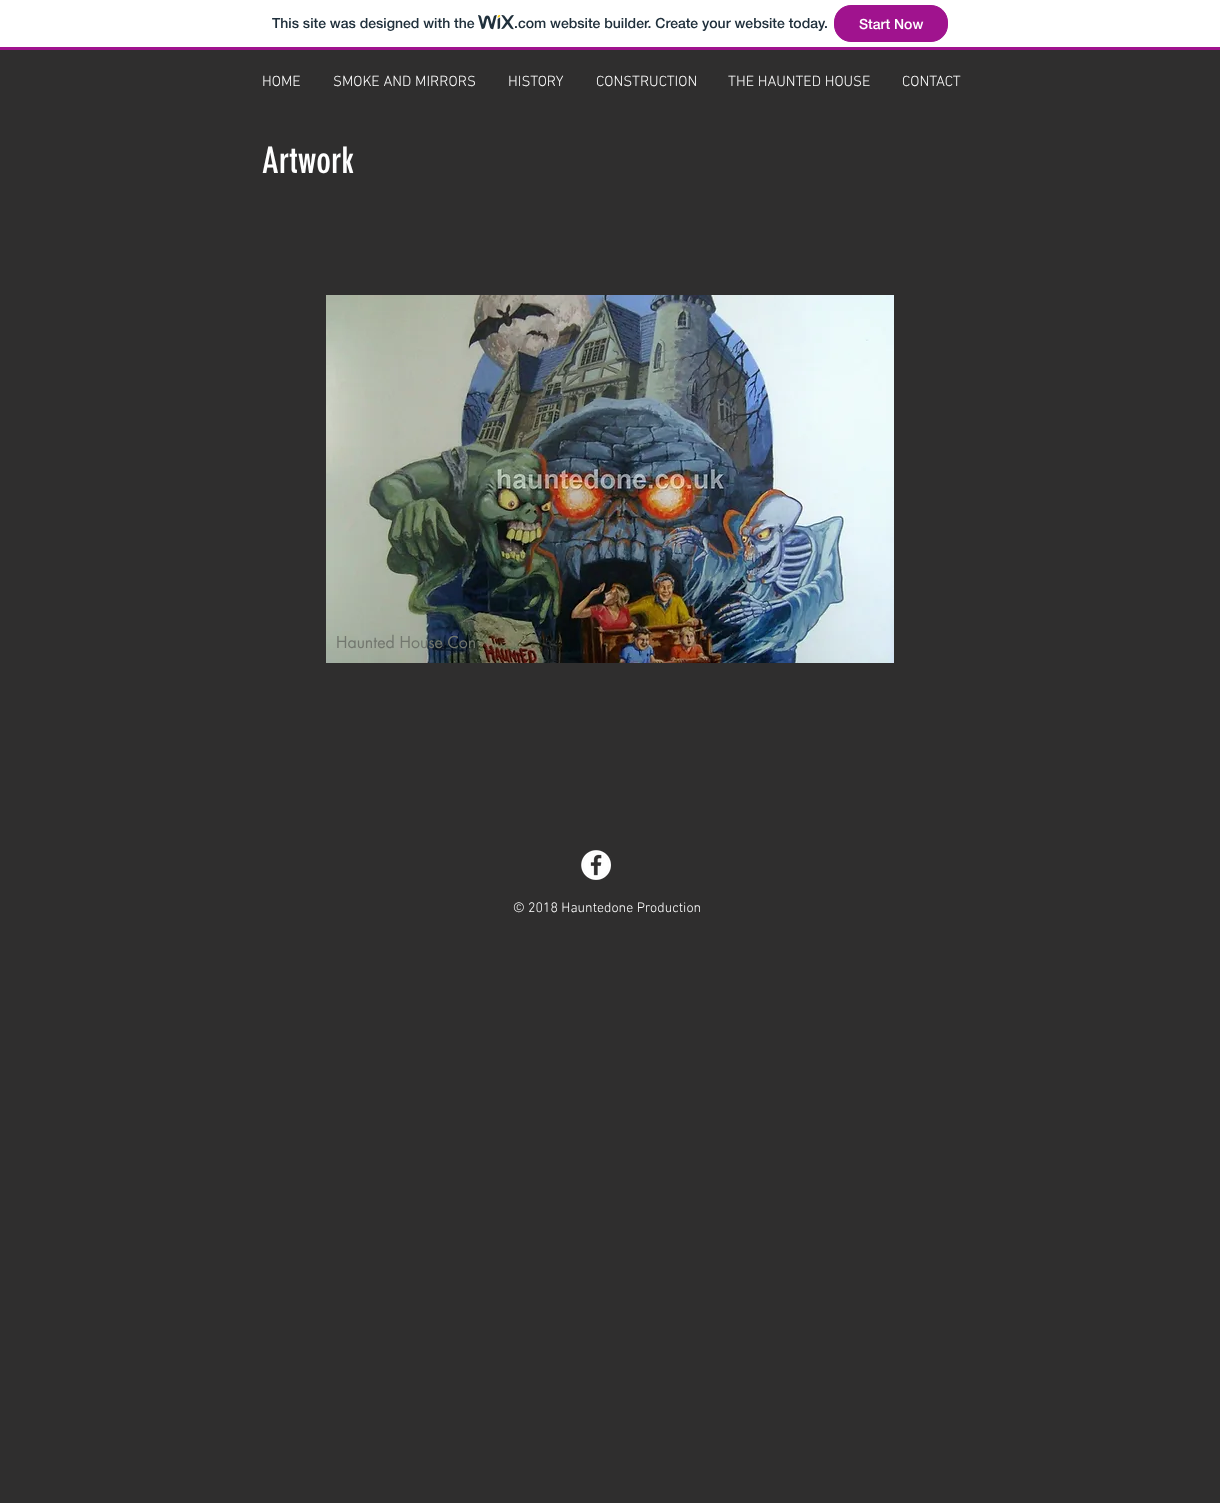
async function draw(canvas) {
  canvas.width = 1220;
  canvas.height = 1503;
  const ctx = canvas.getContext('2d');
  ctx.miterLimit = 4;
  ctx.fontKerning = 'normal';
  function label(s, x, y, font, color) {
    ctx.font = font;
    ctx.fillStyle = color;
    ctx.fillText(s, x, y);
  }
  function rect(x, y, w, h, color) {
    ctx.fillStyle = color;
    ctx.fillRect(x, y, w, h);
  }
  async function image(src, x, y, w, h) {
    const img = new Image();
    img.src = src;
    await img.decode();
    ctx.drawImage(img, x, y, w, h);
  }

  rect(0, 0, 1220, 1503, '#fff');
  rect(0, 47, 1220, 3, '#a0138e');
  label('This site was designed with the', 272, 28, '500 14px "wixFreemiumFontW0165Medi"', '#20303c');
  await image('assets/img1.png', 478, 15, 36, 15);
  label('.com website builder. Create your website today.', 514, 28, '500 14px "wixFreemiumFontW0165Medi"', '#20303c');
  ctx.fillStyle = '#a0138e';
  ctx.beginPath();
  ctx.roundRect(834.5, 5.5, 113, 36, 16.5);
  ctx.fill();
  ctx.strokeStyle = '#a0138e';
  ctx.stroke();
  label('Start Now', 859, 29, '500 14px "wixFreemiumFontW0165Medi"', '#fff');
  rect(0, 50, 1220, 1453, '#2f2e2e');
  label('HOME', 262, 86, '300 15px "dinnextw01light"', '#fff');
  label('SMOKE AND MIRRORS', 333, 86, '300 15px "dinnextw01light"', '#fff');
  label('HISTORY', 508, 86, '300 15px "dinnextw01light"', '#fff');
  label('CONSTRUCTION', 596, 86, '300 15px "dinnextw01light"', '#fff');
  label('THE HAUNTED HOUSE', 728, 86, '300 15px "dinnextw01light"', '#fff');
  label('CONTACT', 902, 86, '300 15px "dinnextw01light"', '#fff');
  label('Artwork', 262, 173, '36px "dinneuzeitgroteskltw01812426"', '#fff');
  await image('assets/img2.png', 326, 295, 568, 368);
  label('Haunted House Con', 336, 648, '16px futura', '#72776e');
  await image('assets/img3.png', 581, 850, 30, 30);
  label('© 2018 Hauntedone Production', 513, 912, '300 14px "dinnextw01light"', '#fff');
}

draw(document.querySelector('canvas'));
